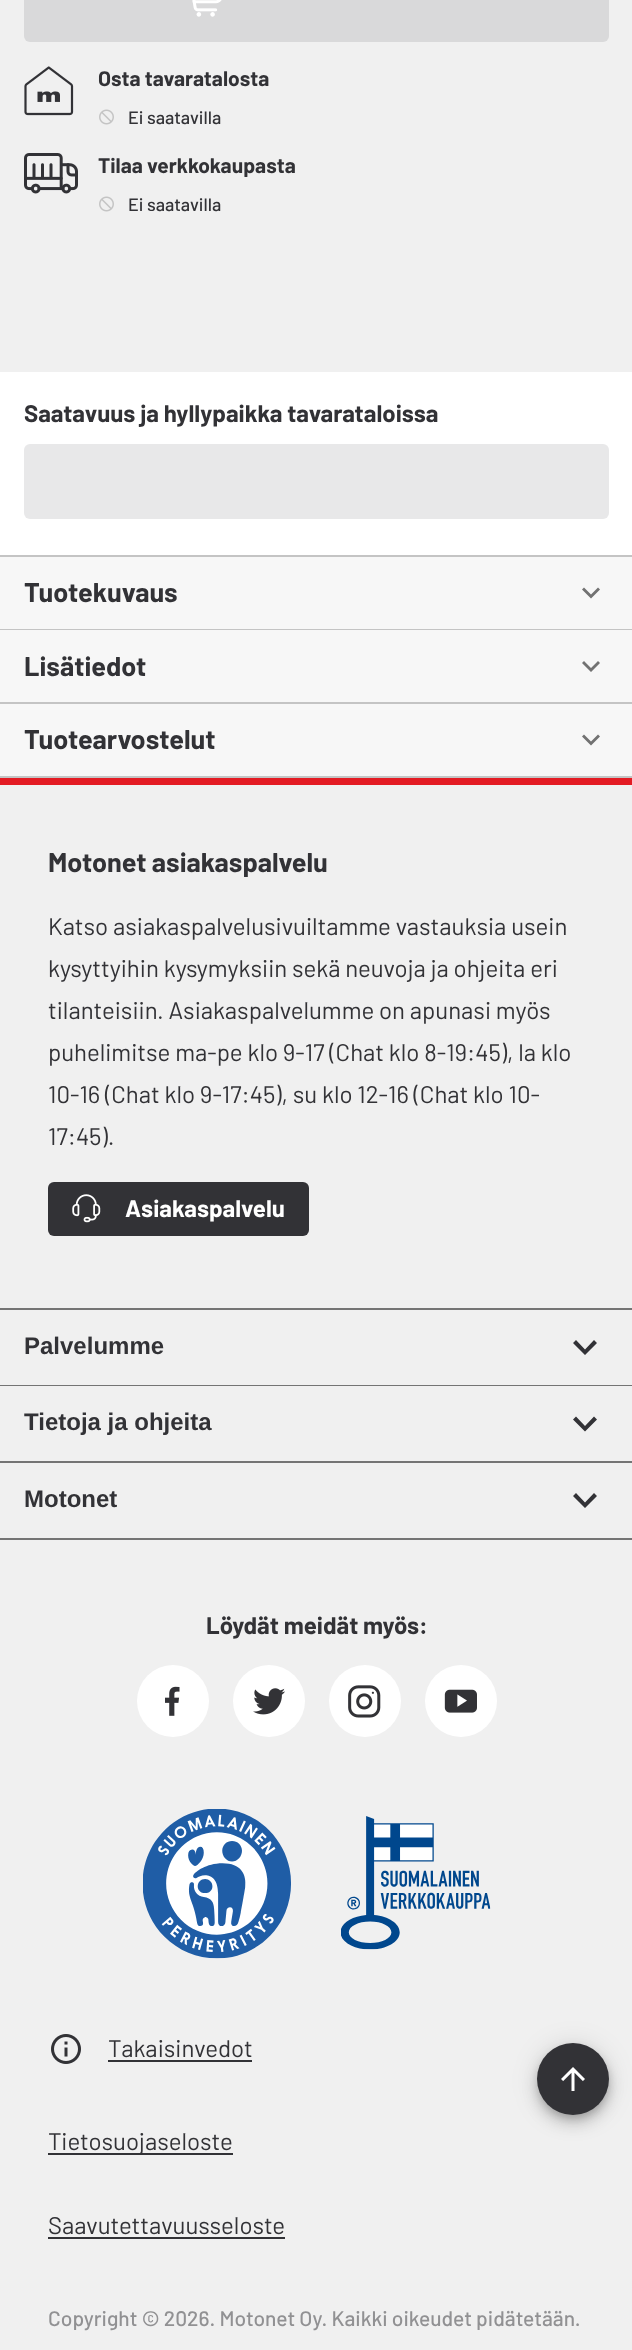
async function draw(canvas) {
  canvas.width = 632;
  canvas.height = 2350;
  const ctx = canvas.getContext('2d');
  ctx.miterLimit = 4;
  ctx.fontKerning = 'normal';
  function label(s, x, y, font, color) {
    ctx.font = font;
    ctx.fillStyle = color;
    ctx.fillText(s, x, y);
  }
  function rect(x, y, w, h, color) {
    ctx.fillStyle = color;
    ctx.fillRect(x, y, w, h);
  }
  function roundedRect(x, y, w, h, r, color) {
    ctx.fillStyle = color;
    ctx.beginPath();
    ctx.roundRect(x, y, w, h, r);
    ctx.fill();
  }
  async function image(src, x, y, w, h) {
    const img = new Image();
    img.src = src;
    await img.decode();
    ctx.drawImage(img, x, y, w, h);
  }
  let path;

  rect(0, 0, 632, 2350, '#fff');
  rect(0, 0, 632, 372, '#f0f0f0');
  roundedRect(24, -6, 585, 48, 6, '#d9d9da');
  await image('assets/img1.png', 192, 0, 30, 17);
  await image('assets/img2.png', 24, 66, 50, 50);
  label('Osta tavaratalosta', 98, 86, 'bold 21px Barlow', '#323236');
  await image('assets/img3.png', 99, 109, 15, 16);
  label('Ei saatavilla', 128, 124, '500 18px Barlow', '#323236');
  await image('assets/img4.png', 24, 153, 54, 41);
  label('Tilaa verkkokaupasta', 98, 173, 'bold 21px Barlow', '#323236');
  await image('assets/img3.png', 99, 196, 15, 16);
  label('Ei saatavilla', 128, 211, '500 18px Barlow', '#323236');
  label('Saatavuus ja hyllypaikka tavarataloissa', 24, 422, 'bold 24px Barlow', '#323236');
  roundedRect(24, 444, 585, 75, 6, '#e8e8e9');
  rect(0, 555, 632, 2, '#c4c4c4');
  rect(0, 557, 632, 72, '#f7f7f7');
  label('Tuotekuvaus', 24, 602, 'bold 27px Barlow', '#323236');
  ctx.fillStyle = '#727272';
  path = new Path2D('M598 587.5L591 594.5L584 587.5L582 589.5L591 598.5L600 589.5Z');
  ctx.fill(path);
  rect(0, 629, 632, 1, '#c4c4c4');
  rect(0, 630, 632, 72, '#f7f7f7');
  label('Lisätiedot', 24, 676, 'bold 27px Barlow', '#323236');
  ctx.fillStyle = '#727272';
  path = new Path2D('M598 661L591 668L584 661L582 663L591 672L600 663Z');
  ctx.fill(path);
  rect(0, 702, 632, 2, '#c4c4c4');
  rect(0, 776, 632, 2, '#c4c4c4');
  rect(0, 704, 632, 72, '#f7f7f7');
  label('Tuotearvostelut', 24, 749, 'bold 27px Barlow', '#323236');
  ctx.fillStyle = '#727272';
  path = new Path2D('M598 734.5L591 741.5L584 734.5L582 736.5L591 745.5L600 736.5Z');
  ctx.fill(path);
  rect(0, 785, 632, 1565, '#f0f0f0');
  rect(0, 778, 632, 7, '#e31b23');
  label('Motonet asiakaspalvelu', 48, 872, 'bold 27px Barlow', '#323236');
  label('Katso asiakaspalvelusivuiltamme vastauksia usein', 48, 935, '24px Barlow', '#323236');
  label('kysyttyihin kysymyksiin sekä neuvoja ja ohjeita eri', 48, 977, '24px Barlow', '#323236');
  label('tilanteisiin. Asiakaspalvelumme on apunasi myös', 48, 1019, '24px Barlow', '#323236');
  label('puhelimitse ma-pe klo 9-17 (Chat klo 8-19:45), la klo', 48, 1061, '24px Barlow', '#323236');
  label('10-16 (Chat klo 9-17:45), su klo 12-16 (Chat klo 10-', 48, 1103, '24px Barlow', '#323236');
  label('17:45).', 48, 1145, '24px Barlow', '#323236');
  roundedRect(48, 1182, 261, 54, 6, '#323236');
  await image('assets/img5.png', 72, 1194, 29, 29);
  label('Asiakaspalvelu', 125, 1217, 'bold 24px Barlow', '#fff');
  rect(0, 1308, 632, 2, '#747474');
  label('Palvelumme', 24, 1354, 'bold 24px Liberation Sans', '#323236');
  path = new Path2D('M594 1340L585 1349.5L576 1340L573 1343L585 1355L597 1343Z');
  ctx.fill(path);
  rect(0, 1385, 632, 1, '#747474');
  label('Tietoja ja ohjeita', 24, 1430, 'bold 24px Liberation Sans', '#323236');
  path = new Path2D('M594 1416.5L585 1426L576 1416.5L573 1419.5L585 1431.5L597 1419.5Z');
  ctx.fill(path);
  rect(0, 1461, 632, 2, '#747474');
  rect(0, 1538, 632, 2, '#747474');
  label('Motonet', 24, 1507, 'bold 24px Liberation Sans', '#323236');
  path = new Path2D('M594 1493L585 1502.5L576 1493L573 1496L585 1508L597 1496Z');
  ctx.fill(path);
  label('Löydät meidät myös:', 206, 1634, 'bold 24px Barlow', '#323236');
  ctx.fillStyle = '#fff';
  ctx.beginPath();
  ctx.arc(173, 1701, 36, 0, 2 * Math.PI);
  ctx.fill();
  await image('assets/img6.png', 165, 1686, 15, 30);
  ctx.beginPath();
  ctx.arc(269, 1701, 36, 0, 2 * Math.PI);
  ctx.fill();
  await image('assets/img7.png', 253, 1688, 32, 27);
  ctx.beginPath();
  ctx.arc(365, 1701, 36, 0, 2 * Math.PI);
  ctx.fill();
  await image('assets/img8.png', 348, 1685, 33, 33);
  ctx.beginPath();
  ctx.arc(461, 1701, 36, 0, 2 * Math.PI);
  ctx.fill();
  await image('assets/img9.png', 444, 1689, 33, 24);
  await image('assets/img10.png', 143, 1809, 148, 150);
  await image('assets/img11.png', 341, 1816, 150, 134);
  await image('assets/img12.png', 51, 2034, 30, 30);
  label('Takaisinvedot', 108, 2057, '24px Barlow', '#323236');
  rect(108, 2060, 144, 2, '#323236');
  rect(48, 2153, 185, 2, '#323236');
  label('Tietosuojaseloste', 48, 2150, '24px Barlow', '#323236');
  label('Saavutettavuusseloste', 48, 2234, '24px Barlow', '#323236');
  rect(48, 2237, 237, 2, '#323236');
  label('Copyright © 2026. Motonet Oy. Kaikki oikeudet pidätetään.', 48, 2326, '500 21px Barlow', '#919193');
  ctx.fillStyle = '#0000001f';
  ctx.filter = 'blur(13.5px)';
  ctx.beginPath();
  ctx.roundRect(537, 2045, 72, 72, 36);
  ctx.fill();
  ctx.filter = 'none';
  ctx.fillStyle = '#00000024';
  ctx.filter = 'blur(7.5px)';
  ctx.beginPath();
  ctx.roundRect(537, 2052, 72, 72, 36);
  ctx.fill();
  ctx.filter = 'none';
  ctx.fillStyle = '#00000033';
  ctx.filter = 'blur(4px)';
  ctx.beginPath();
  ctx.roundRect(539, 2049, 69, 69, 34.5);
  ctx.fill();
  ctx.filter = 'none';
  ctx.fillStyle = '#323236';
  ctx.beginPath();
  ctx.arc(573, 2079, 36, 0, 2 * Math.PI);
  ctx.fill();
  await image('assets/img13.png', 561, 2067, 24, 24);
}

draw(document.querySelector('canvas'));
